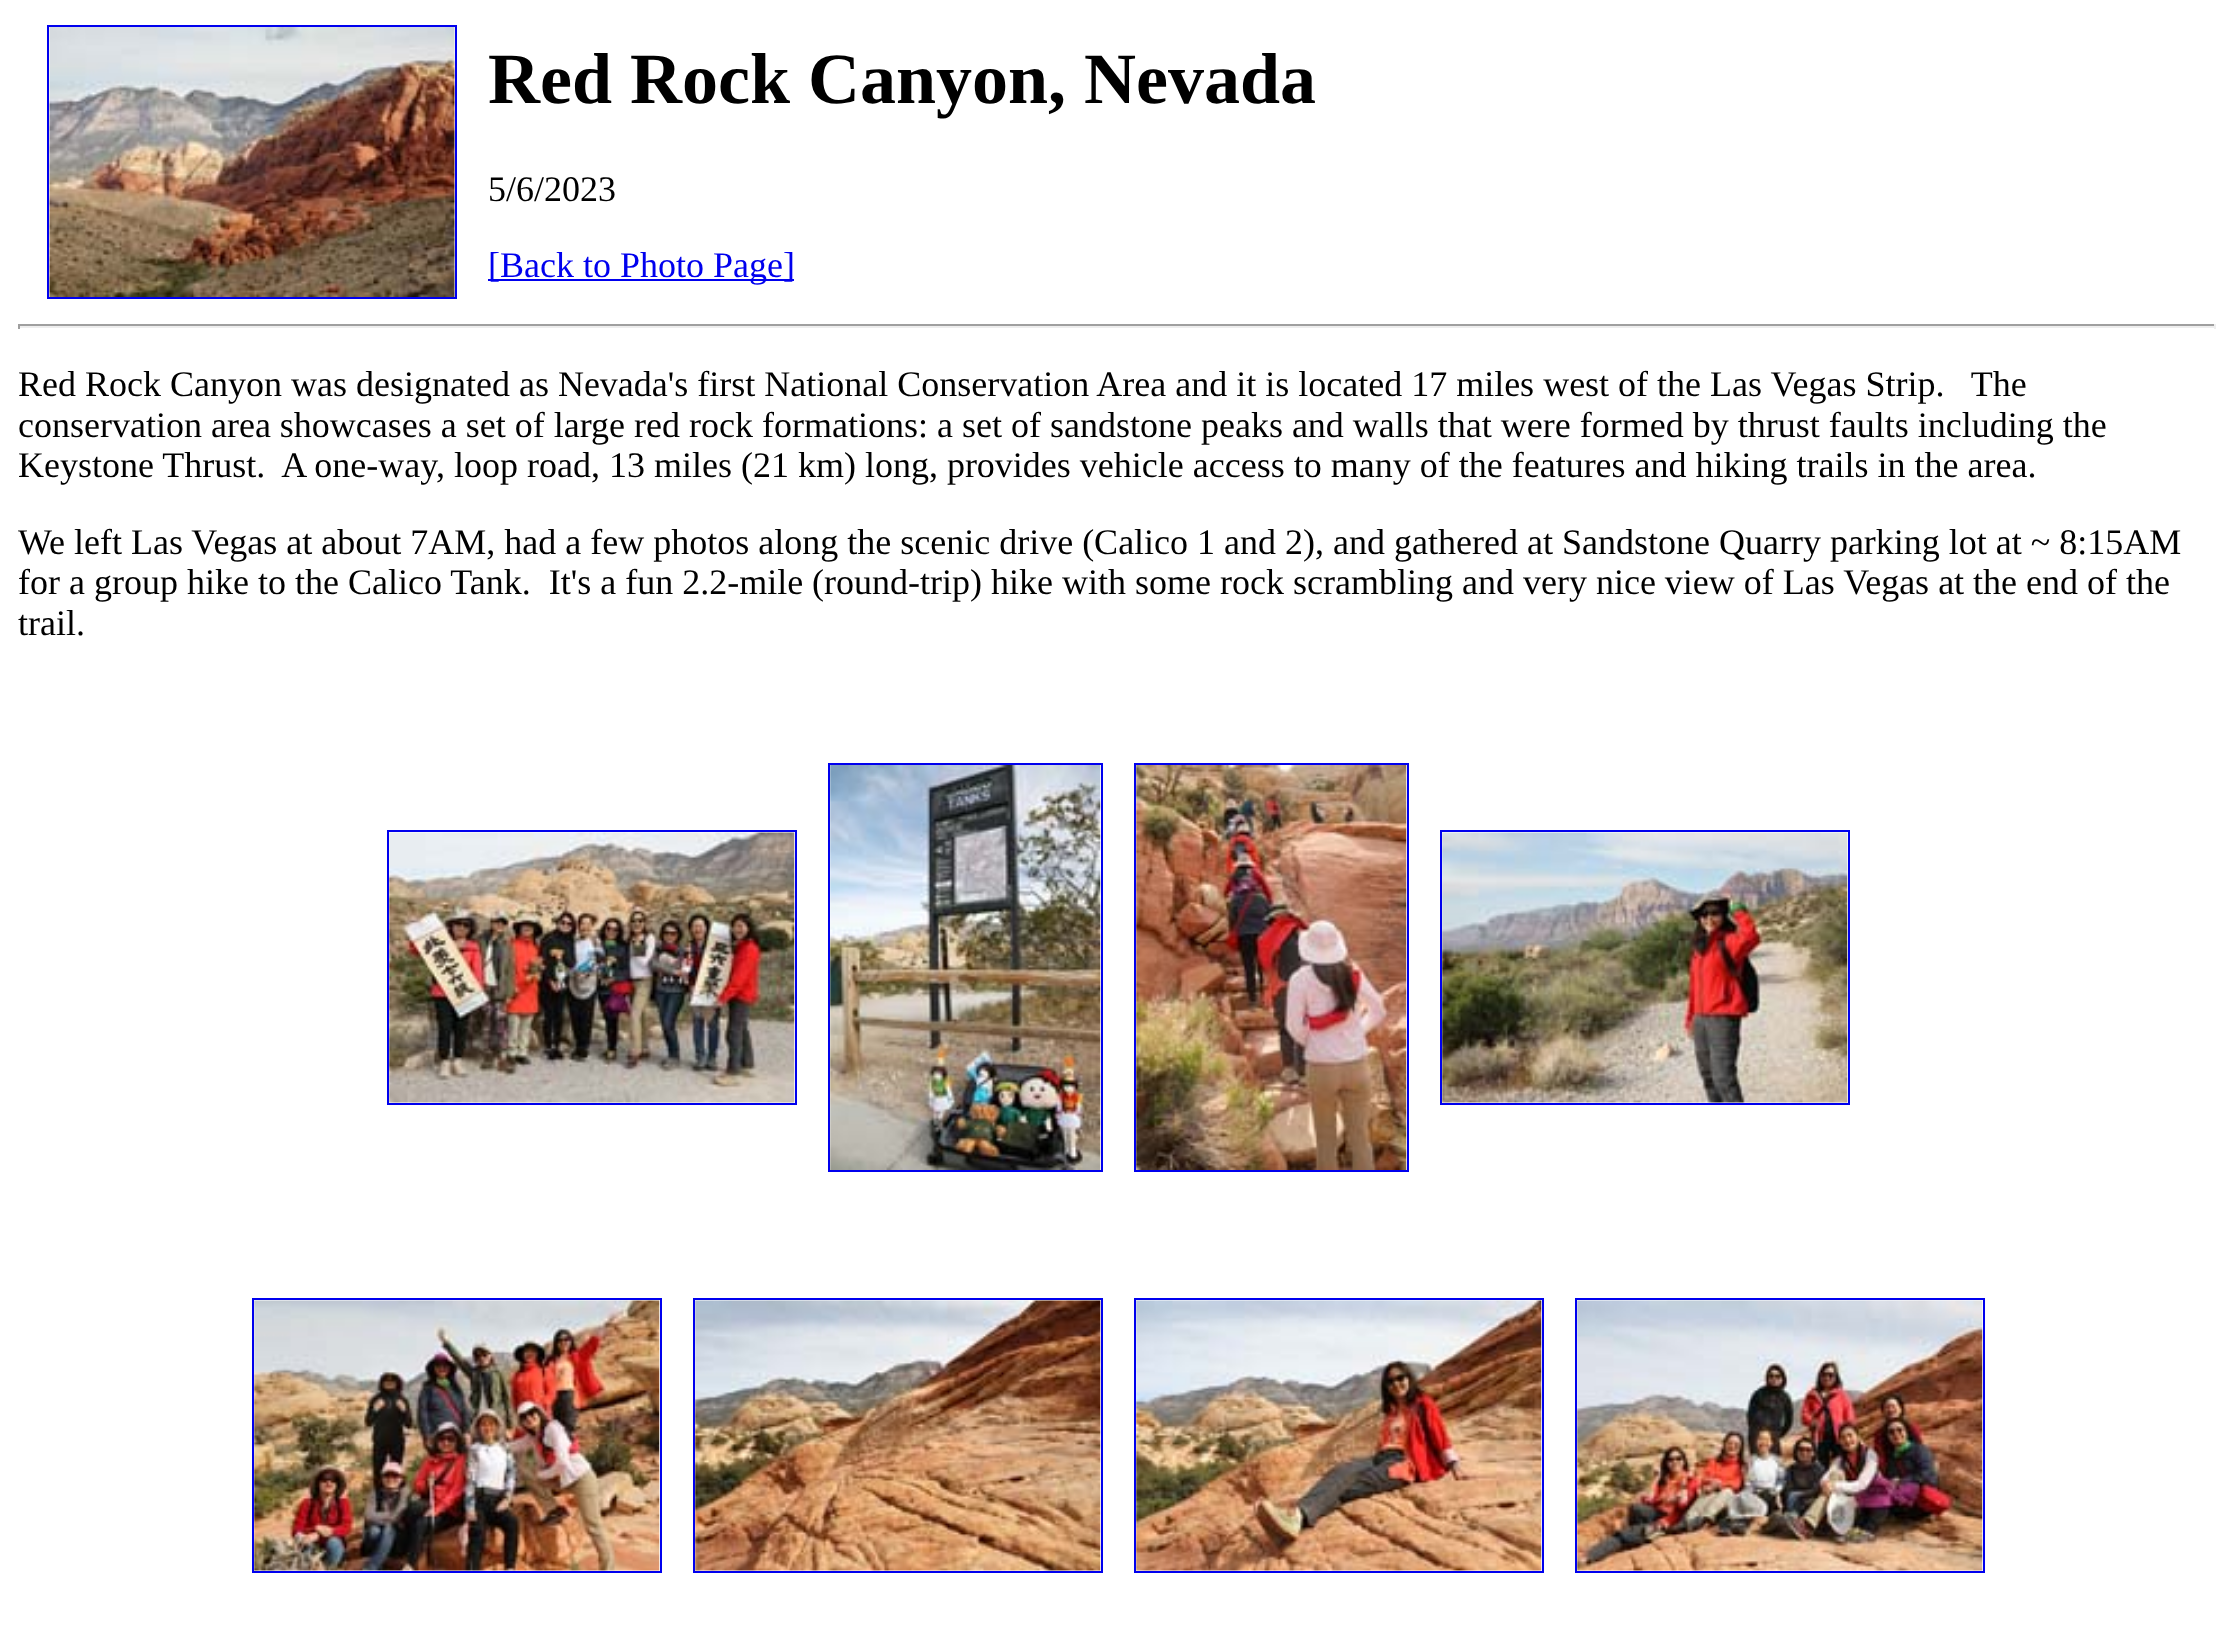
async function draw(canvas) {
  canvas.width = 2233;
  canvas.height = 1625;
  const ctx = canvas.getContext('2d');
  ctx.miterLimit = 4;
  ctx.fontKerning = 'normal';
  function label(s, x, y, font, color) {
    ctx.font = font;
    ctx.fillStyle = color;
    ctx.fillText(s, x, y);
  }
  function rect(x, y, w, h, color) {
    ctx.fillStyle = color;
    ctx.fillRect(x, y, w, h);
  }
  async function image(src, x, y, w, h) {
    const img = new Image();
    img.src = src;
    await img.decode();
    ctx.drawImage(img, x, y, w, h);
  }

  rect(0, 0, 2233, 1625, '#fff');
  ctx.strokeStyle = '#00e';
  ctx.lineWidth = 2;
  ctx.strokeRect(48, 26, 408, 272);
  await image('assets/img1.png', 49, 27, 406, 270);
  label('Red Rock Canyon, Nevada', 488, 103, 'bold 72px Liberation Serif', '#000');
  label('5/6/2023', 488, 201, '36px Liberation Serif', '#000');
  rect(488, 279, 306, 2, '#00e');
  label('[Back to Photo Page]', 488, 277, '36px Liberation Serif', '#00e');
  rect(18, 324, 2198, 2, '#9f9f9f');
  rect(2214, 324, 2, 5, '#eee');
  rect(18, 326, 2198, 2, '#eee');
  rect(18, 324, 2, 5, '#9f9f9f');
  label('Red Rock Canyon was designated as Nevada\'s first National Conservation Area and it is located 17 miles west of the Las Vegas Strip.   The', 18, 396, '36px Liberation Serif', '#000');
  label('conservation area showcases a set of large red rock formations: a set of sandstone peaks and walls that were formed by thrust faults including the', 18, 437, '36px Liberation Serif', '#000');
  label('Keystone Thrust.  A one-way, loop road, 13 miles (21 km) long, provides vehicle access to many of the features and hiking trails in the area.', 18, 477, '36px Liberation Serif', '#000');
  label('We left Las Vegas at about 7AM, had a few photos along the scenic drive (Calico 1 and 2), and gathered at Sandstone Quarry parking lot at ~ 8:15AM', 18, 554, '36px Liberation Serif', '#000');
  label('for a group hike to the Calico Tank.  It\'s a fun 2.2-mile (round-trip) hike with some rock scrambling and very nice view of Las Vegas at the end of the', 18, 594, '36px Liberation Serif', '#000');
  label('trail.', 18, 635, '36px Liberation Serif', '#000');
  ctx.strokeRect(388, 831, 408, 273);
  await image('assets/img2.png', 389, 832, 406, 271);
  ctx.strokeRect(829, 764, 273, 407);
  await image('assets/img3.png', 830, 765, 271, 405);
  ctx.strokeRect(1135, 764, 273, 407);
  await image('assets/img4.png', 1136, 765, 271, 405);
  ctx.strokeRect(1441, 831, 408, 273);
  await image('assets/img5.png', 1442, 832, 406, 271);
  ctx.strokeRect(253, 1299, 408, 273);
  await image('assets/img6.png', 254, 1300, 406, 271);
  ctx.strokeRect(694, 1299, 408, 273);
  await image('assets/img7.png', 695, 1300, 406, 271);
  ctx.strokeRect(1135, 1299, 408, 273);
  await image('assets/img8.png', 1136, 1300, 406, 271);
  ctx.strokeRect(1576, 1299, 408, 273);
  await image('assets/img9.png', 1577, 1300, 406, 271);
}

draw(document.querySelector('canvas'));
